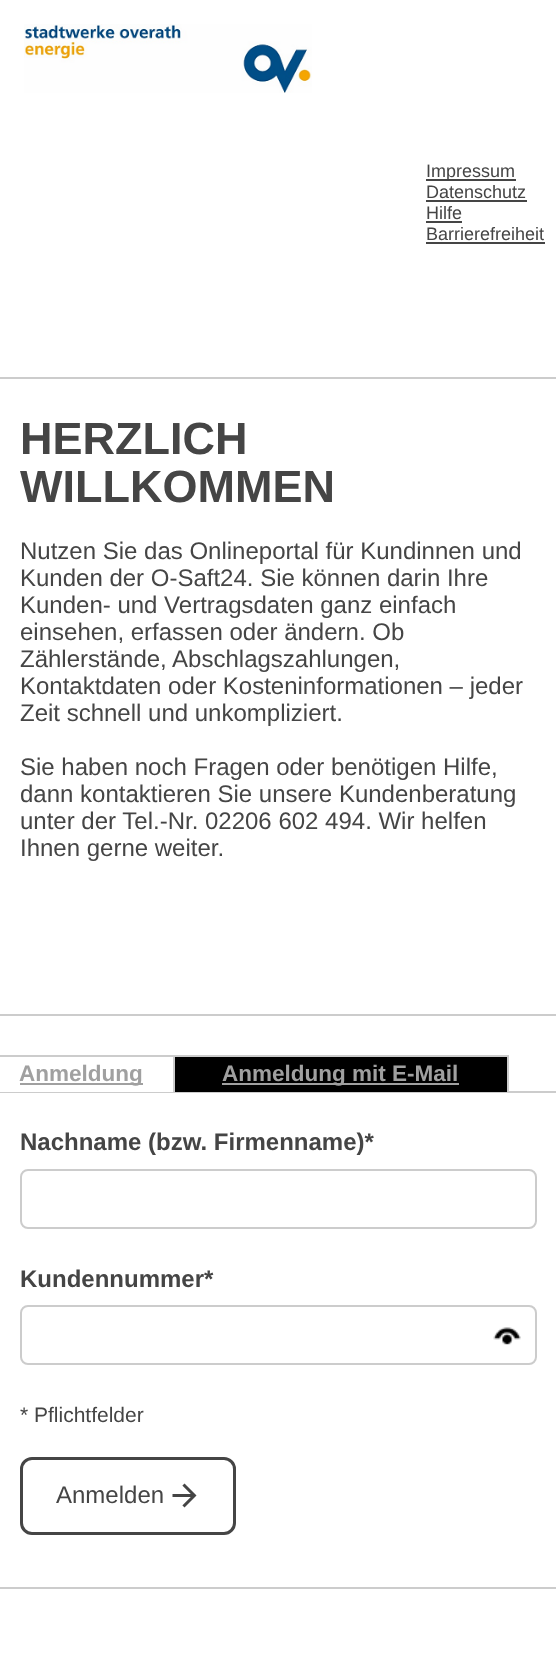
async function draw(canvas) {
  canvas.width = 556;
  canvas.height = 1666;
  const ctx = canvas.getContext('2d');
  ctx.miterLimit = 4;
  ctx.fontKerning = 'normal';
  function label(s, x, y, font, color) {
    ctx.font = font;
    ctx.fillStyle = color;
    ctx.fillText(s, x, y);
  }
  function rect(x, y, w, h, color) {
    ctx.fillStyle = color;
    ctx.fillRect(x, y, w, h);
  }
  async function image(src, x, y, w, h) {
    const img = new Image();
    img.src = src;
    await img.decode();
    ctx.drawImage(img, x, y, w, h);
  }

  rect(0, 0, 556, 1666, '#fff');
  await image('assets/img1.png', 24, 24, 288, 69);
  rect(426, 179, 90, 2, '#454545');
  label('Impressum', 426, 177, '18px Liberation Sans', '#454545');
  label('Datenschutz', 426, 198, '18px Liberation Sans', '#454545');
  rect(426, 200, 101, 2, '#454545');
  label('Hilfe', 426, 219, '18px Liberation Sans', '#454545');
  rect(426, 221, 36, 2, '#454545');
  label('Barrierefreiheit', 426, 240, '18px Liberation Sans', '#454545');
  rect(426, 242, 119, 2, '#454545');
  ctx.strokeStyle = '#ccc';
  ctx.lineWidth = 2;
  ctx.strokeRect(-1, 378, 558, 637);
  label('HERZLICH', 20, 454, 'bold 45px Liberation Sans', '#454545');
  label('WILLKOMMEN', 20, 502, 'bold 45px Liberation Sans', '#454545');
  label('Nutzen Sie das Onlineportal für Kundinnen und', 20, 559, '24px Liberation Sans', '#454545');
  label('Kunden der O-Saft24. Sie können darin Ihre', 20, 586, '24px Liberation Sans', '#454545');
  label('Kunden- und Vertragsdaten ganz einfach', 20, 613, '24px Liberation Sans', '#454545');
  label('einsehen, erfassen oder ändern. Ob', 20, 640, '24px Liberation Sans', '#454545');
  label('Zählerstände, Abschlagszahlungen,', 20, 667, '24px Liberation Sans', '#454545');
  label('Kontaktdaten oder Kosteninformationen – jeder', 20, 694, '24px Liberation Sans', '#454545');
  label('Zeit schnell und unkompliziert.', 20, 721, '24px Liberation Sans', '#454545');
  label('Sie haben noch Fragen oder benötigen Hilfe,', 20, 775, '24px Liberation Sans', '#454545');
  label('dann kontaktieren Sie unsere Kundenberatung', 20, 802, '24px Liberation Sans', '#454545');
  label('unter der Tel.-Nr. 02206 602 494. Wir helfen', 20, 829, '24px Liberation Sans', '#454545');
  label('Ihnen gerne weiter.', 20, 856, '24px Liberation Sans', '#454545');
  ctx.strokeRect(-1, 1092, 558, 496);
  rect(0, 1091, 173, 1, '#fff');
  rect(0, 1055, 509, 2, '#ccc');
  rect(173, 1055, 2, 37, '#ccc');
  rect(20, 1083, 123, 2, '#a0a0a0');
  label('Anmeldung', 19, 1081, 'bold 22.5px Liberation Sans', '#a0a0a0');
  rect(175, 1057, 332, 35, '#000');
  rect(507, 1055, 2, 37, '#ccc');
  rect(222, 1083, 237, 2, '#a0a0a0');
  label('Anmeldung mit E-Mail', 222, 1081, 'bold 22.5px Liberation Sans', '#a0a0a0');
  label('Nachname (bzw. Firmenname)*', 20, 1150, 'bold 24px Liberation Sans', '#454545');
  ctx.beginPath();
  ctx.roundRect(21, 1170, 515, 58, 7);
  ctx.stroke();
  label('Kundennummer*', 20, 1287, 'bold 24px Liberation Sans', '#454545');
  ctx.beginPath();
  ctx.roundRect(21, 1306, 515, 58, 7);
  ctx.stroke();
  await image('assets/img2.png', 493, 1327, 28, 18);
  label('* Pflichtfelder', 20, 1422, '21px Liberation Sans', '#454545');
  ctx.beginPath();
  ctx.roundRect(21.5, 1458.5, 213, 75, 10.5);
  ctx.strokeStyle = '#454545';
  ctx.lineWidth = 3;
  ctx.stroke();
  label('Anmelden', 56, 1503, '24px Liberation Sans', '#454545');
  await image('assets/img3.png', 172, 1483, 25, 25);
}

draw(document.querySelector('canvas'));
